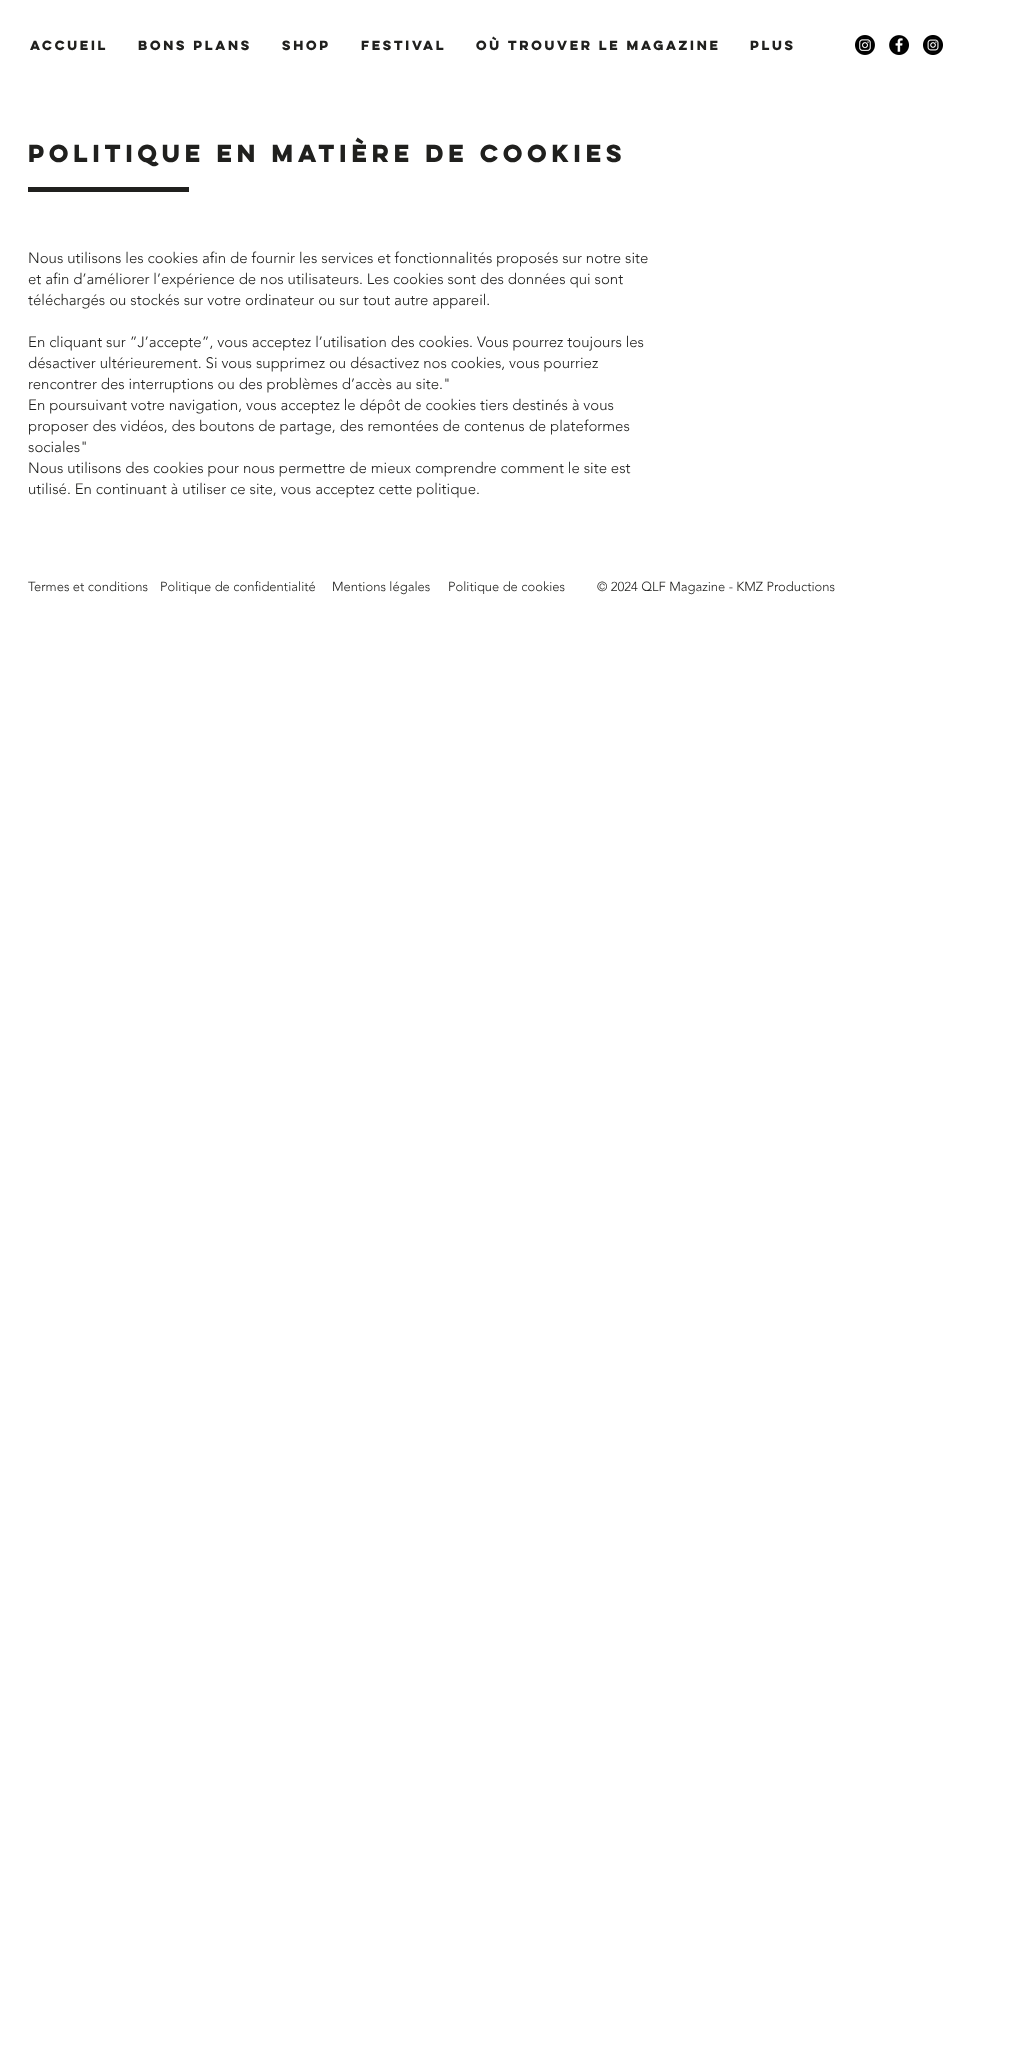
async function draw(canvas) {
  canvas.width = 1010;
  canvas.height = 2058;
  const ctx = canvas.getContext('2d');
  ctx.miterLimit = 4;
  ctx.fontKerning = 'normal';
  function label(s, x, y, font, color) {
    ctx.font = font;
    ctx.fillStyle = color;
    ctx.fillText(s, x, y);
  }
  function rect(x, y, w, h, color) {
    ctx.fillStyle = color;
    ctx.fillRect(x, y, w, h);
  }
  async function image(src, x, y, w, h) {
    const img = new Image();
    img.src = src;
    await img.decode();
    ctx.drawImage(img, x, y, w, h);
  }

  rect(0, 0, 1010, 2058, '#fff');
  label('Accueil', 30, 50, 'bold 12px "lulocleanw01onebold"', '#20201e');
  label('Bons plans', 138, 50, 'bold 12px "lulocleanw01onebold"', '#20201e');
  label('Shop', 282, 50, 'bold 12px "lulocleanw01onebold"', '#20201e');
  label('Festival', 361, 50, 'bold 12px "lulocleanw01onebold"', '#20201e');
  label('Où trouver le magazine', 476, 50, 'bold 12px "lulocleanw01onebold"', '#20201e');
  label('Plus', 750, 50, 'bold 12px "lulocleanw01onebold"', '#20201e');
  await image('assets/img1.png', 855, 35, 20, 20);
  await image('assets/img2.png', 889, 35, 20, 20);
  await image('assets/img3.png', 923, 35, 20, 20);
  label('Politique en matière de cookies', 28, 162, 'bold 22px "lulocleanw01onebold"', '#20201e');
  rect(28, 187, 161, 5, '#20201e');
  label('Nous utilisons les cookies afin de fournir les services et fonctionnalités proposés sur notre site', 28, 263, '300 15px "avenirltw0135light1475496"', '#20201e');
  label('et afin d’améliorer l’expérience de nos utilisateurs. Les cookies sont des données qui sont', 28, 284, '300 15px "avenirltw0135light1475496"', '#20201e');
  label('téléchargés ou stockés sur votre ordinateur ou sur tout autre appareil.', 28, 305, '300 15px "avenirltw0135light1475496"', '#20201e');
  label('En cliquant sur ”J’accepte”, vous acceptez l’utilisation des cookies. Vous pourrez toujours les', 28, 347, '300 15px "avenirltw0135light1475496"', '#20201e');
  label('désactiver ultérieurement. Si vous supprimez ou désactivez nos cookies, vous pourriez', 28, 368, '300 15px "avenirltw0135light1475496"', '#20201e');
  label('rencontrer des interruptions ou des problèmes d’accès au site."', 28, 389, '300 15px "avenirltw0135light1475496"', '#20201e');
  label('En poursuivant votre navigation, vous acceptez le dépôt de cookies tiers destinés à vous', 28, 410, '300 15px "avenirltw0135light1475496"', '#20201e');
  label('proposer des vidéos, des boutons de partage, des remontées de contenus de plateformes', 28, 431, '300 15px "avenirltw0135light1475496"', '#20201e');
  label('sociales"', 28, 452, '300 15px "avenirltw0135light1475496"', '#20201e');
  label('Nous utilisons des cookies pour nous permettre de mieux comprendre comment le site est', 28, 473, '300 15px "avenirltw0135light1475496"', '#20201e');
  label('utilisé. En continuant à utiliser ce site, vous acceptez cette politique.', 28, 494, '300 15px "avenirltw0135light1475496"', '#20201e');
  label('Termes et conditions', 28, 591, '300 13px "avenirltw0135light1475496"', '#20201e');
  label('Politique de confidentialité', 160, 591, '300 13px "avenirltw0135light1475496"', '#20201e');
  label('Mentions légales', 332, 591, '300 13px "avenirltw0135light1475496"', '#20201e');
  label('Politique de cookies', 448, 591, '300 13px "avenirltw0135light1475496"', '#20201e');
  label('© 2024 QLF Magazine - KMZ Productions', 597, 591, '300 13px "avenirltw0135light1475496"', '#20201e');
}

draw(document.querySelector('canvas'));
